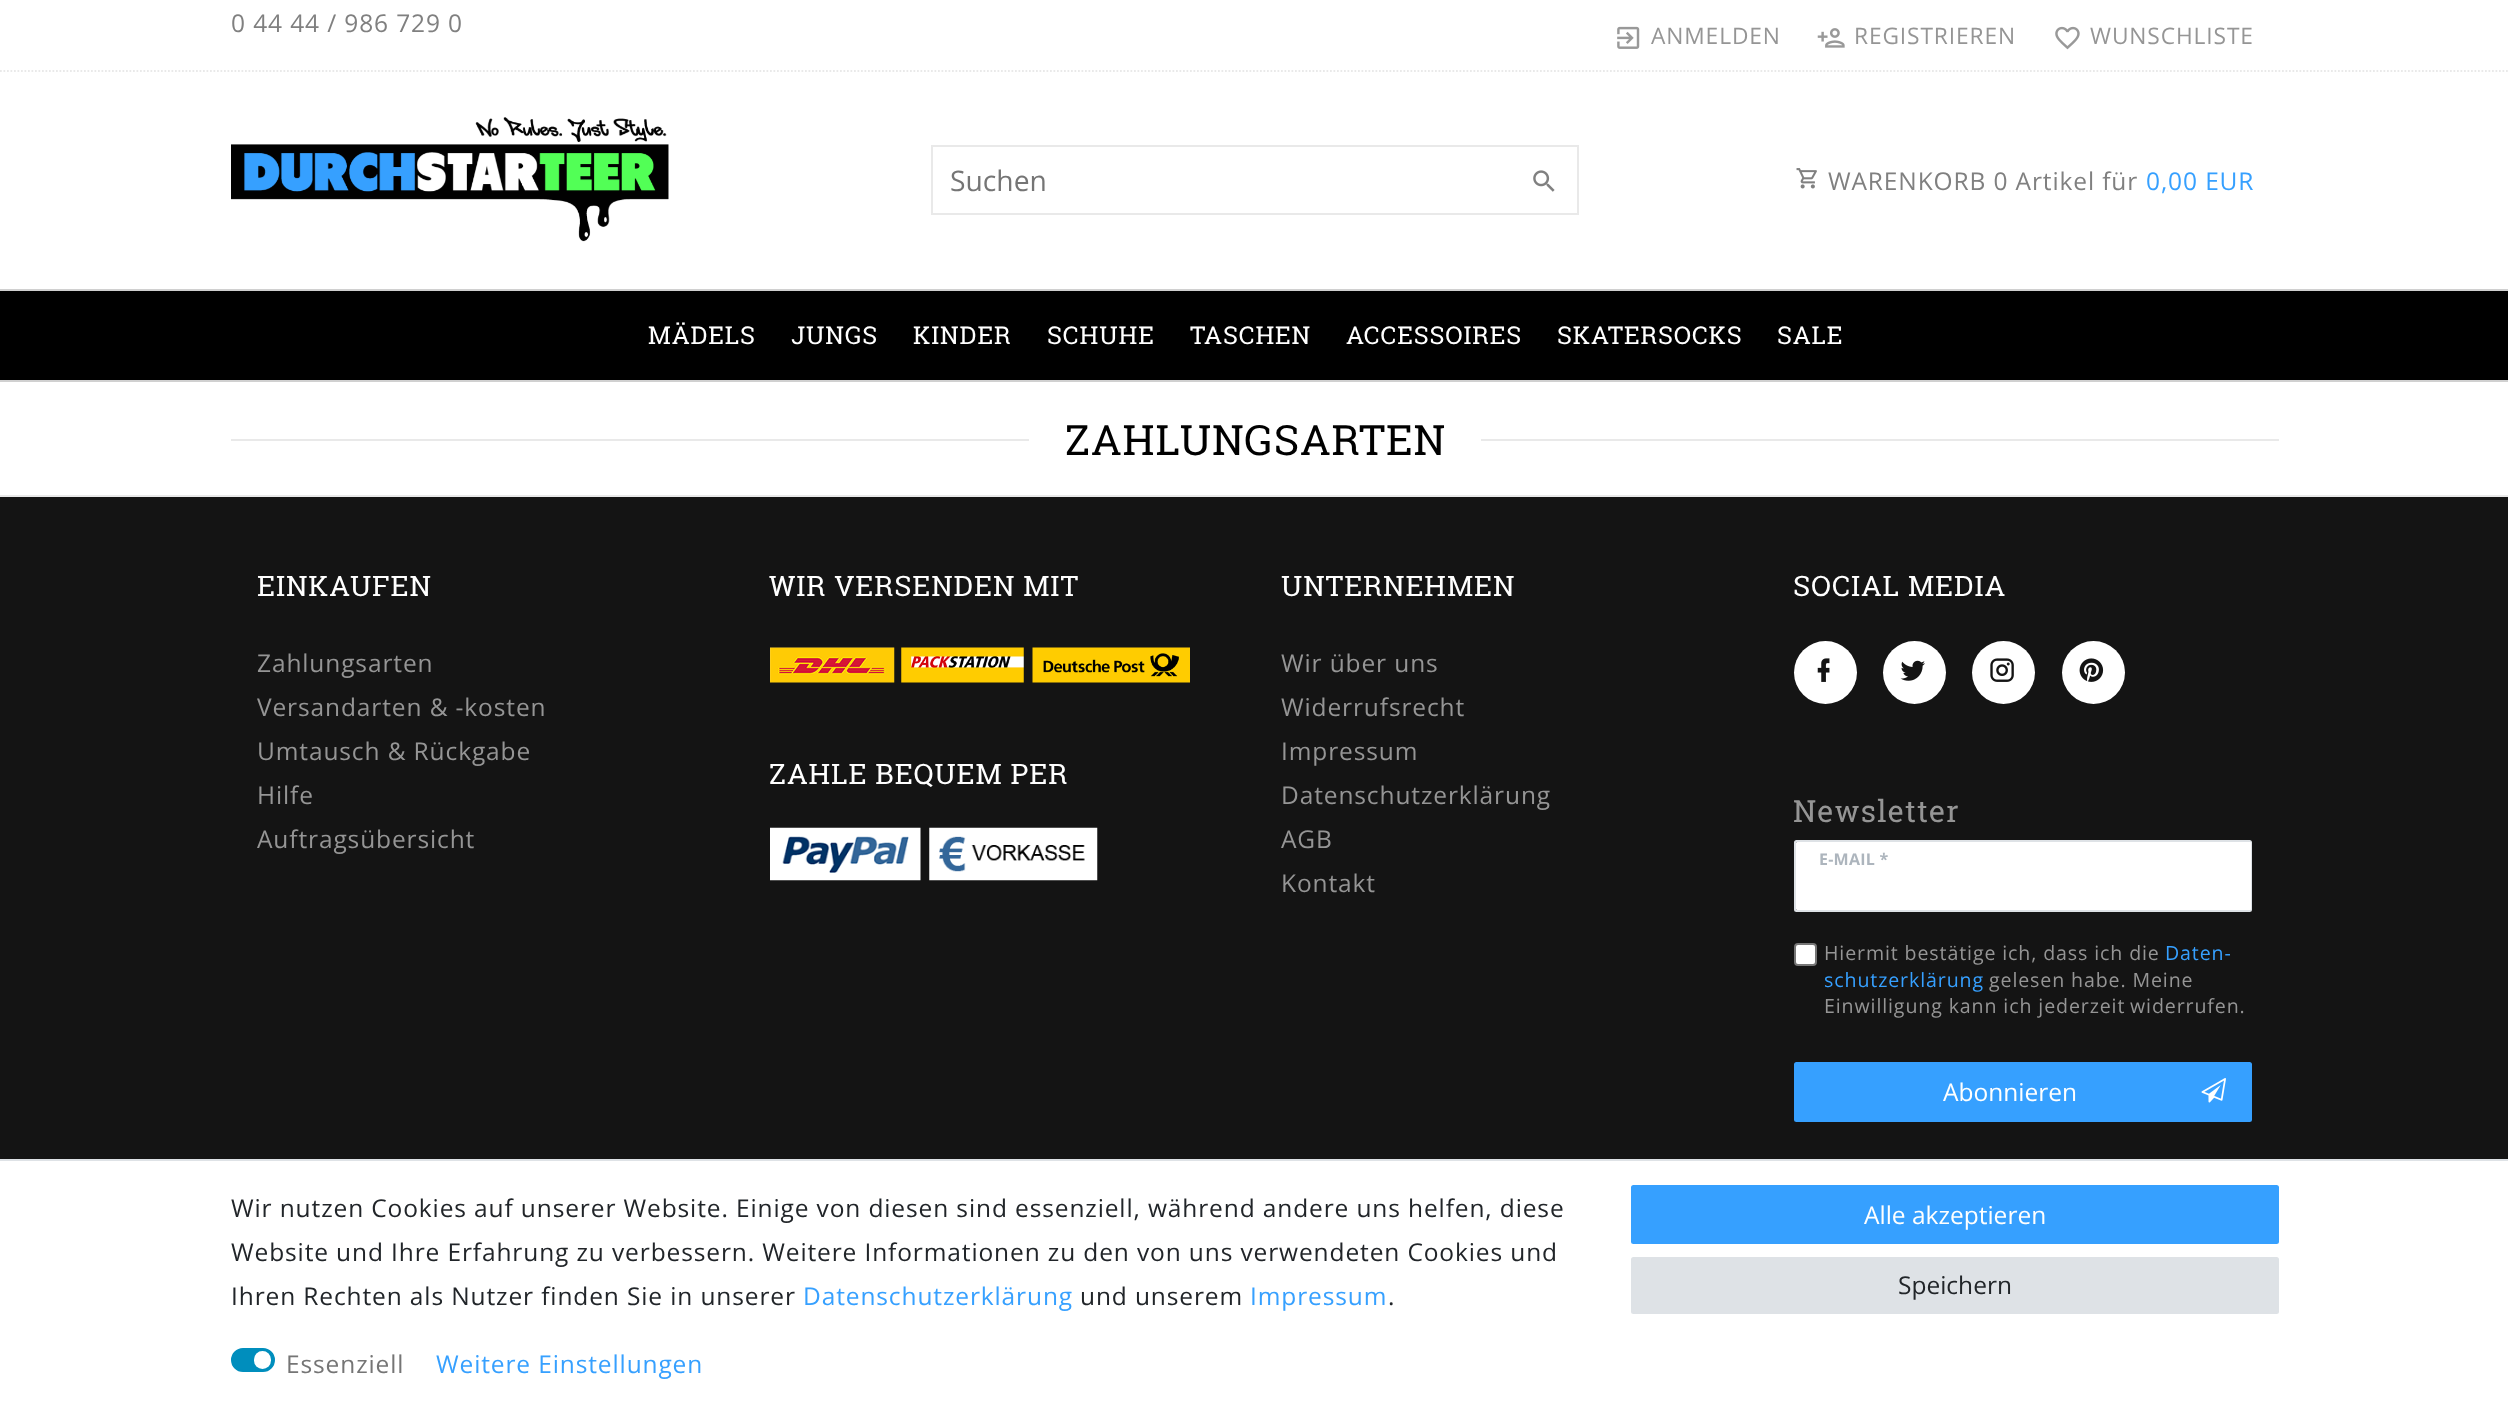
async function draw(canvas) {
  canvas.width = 2508;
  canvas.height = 1409;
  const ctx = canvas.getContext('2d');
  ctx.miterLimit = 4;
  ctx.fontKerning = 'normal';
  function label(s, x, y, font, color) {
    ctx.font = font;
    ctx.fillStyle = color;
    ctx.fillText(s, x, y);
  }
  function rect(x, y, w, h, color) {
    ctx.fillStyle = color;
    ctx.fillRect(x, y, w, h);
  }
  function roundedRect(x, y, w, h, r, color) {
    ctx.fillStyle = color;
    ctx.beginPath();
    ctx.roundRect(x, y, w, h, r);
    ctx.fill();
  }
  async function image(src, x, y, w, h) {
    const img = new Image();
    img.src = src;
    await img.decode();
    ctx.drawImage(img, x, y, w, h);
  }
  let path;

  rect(0, 0, 2508, 1409, '#fff');
  path = new Path2D('M0 71H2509.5');
  ctx.strokeStyle = '#e9e9e9';
  ctx.lineWidth = 1.8;
  ctx.setLineDash([1.75, 1.75]);
  ctx.stroke(path);
  ctx.letterSpacing = '0.88px';
  label('0 44 44 / 986 729 0', 231, 32, '24.5px Open Sans', '#808080');
  await image('assets/img1.png', 1617, 26, 23, 23);
  label('ANMELDEN', 1651, 44, '22.75px Open Sans', '#959595');
  await image('assets/img2.png', 1817, 28, 28, 20);
  label('REGISTRIEREN', 1854, 44, '22.75px Open Sans', '#959595');
  await image('assets/img3.png', 2055, 26, 25, 24);
  label('WUNSCHLISTE', 2090, 44, '22.75px Open Sans', '#959595');
  rect(0, 289, 2508, 2, '#d0d0d0');
  await image('assets/img4.png', 231, 117, 438, 125);
  ctx.lineWidth = 2;
  ctx.setLineDash([]);
  ctx.strokeRect(932, 146, 646, 68);
  ctx.letterSpacing = '0px';
  label('Suchen', 950, 191, '28.25px Open Sans', '#757575');
  await image('assets/img5.png', 1533, 170, 22, 22);
  await image('assets/img6.png', 1796, 168, 21, 21);
  ctx.letterSpacing = '0.88px';
  label('WARENKORB 0 Artikel für', 1828, 190, '24.5px Open Sans', '#808080');
  label('0,00 EUR', 2146, 190, '24.5px Open Sans', '#36a0ff');
  rect(0, 291, 2508, 89, '#000');
  rect(0, 380, 2508, 2, '#d0d0d0');
  label('MÄDELS', 648, 344, '24.5px Roboto Slab', '#fff');
  label('JUNGS', 791, 344, '24.5px Roboto Slab', '#fff');
  label('KINDER', 913, 344, '24.5px Roboto Slab', '#fff');
  label('SCHUHE', 1047, 344, '24.5px Roboto Slab', '#fff');
  label('TASCHEN', 1190, 344, '24.5px Roboto Slab', '#fff');
  label('ACCESSOIRES', 1346, 344, '24.5px Roboto Slab', '#fff');
  label('SKATERSOCKS', 1557, 344, '24.5px Roboto Slab', '#fff');
  label('SALE', 1777, 344, '24.5px Roboto Slab', '#fff');
  rect(231, 439, 2048, 2, '#e9e9e9');
  rect(1029, 439, 452, 2, '#fff');
  label('ZAHLUNGSARTEN', 1065, 455, '41.75px Roboto Slab', '#000');
  rect(0, 497, 2508, 662, '#141414');
  rect(0, 495, 2508, 2, '#e9e9e9');
  label('EINKAUFEN', 257, 596, '28.25px Roboto Slab', '#fff');
  label('Zahlungsarten', 257, 672, '24.5px Open Sans', '#959595');
  label('Versandarten & -kosten', 257, 716, '24.5px Open Sans', '#959595');
  label('Umtausch & Rückgabe', 257, 760, '24.5px Open Sans', '#959595');
  label('Hilfe', 257, 804, '24.5px Open Sans', '#959595');
  label('Auftragsübersicht', 257, 848, '24.5px Open Sans', '#959595');
  label('WIR VERSENDEN MIT', 769, 596, '28.25px Roboto Slab', '#fff');
  await image('assets/img7.png', 770, 647, 125, 36);
  await image('assets/img8.png', 901, 647, 123, 36);
  await image('assets/img9.png', 1032, 647, 158, 36);
  label('ZAHLE BEQUEM PER', 769, 784, '28.25px Roboto Slab', '#fff');
  await image('assets/img10.png', 770, 827, 151, 54);
  await image('assets/img11.png', 929, 827, 169, 54);
  label('UNTERNEHMEN', 1281, 596, '28.25px Roboto Slab', '#fff');
  label('Wir über uns', 1281, 672, '24.5px Open Sans', '#959595');
  label('Widerrufsrecht', 1281, 716, '24.5px Open Sans', '#959595');
  label('Impressum', 1281, 760, '24.5px Open Sans', '#959595');
  label('Datenschutzerklärung', 1281, 804, '24.5px Open Sans', '#959595');
  label('AGB', 1281, 848, '24.5px Open Sans', '#959595');
  label('Kontakt', 1281, 892, '24.5px Open Sans', '#959595');
  label('SOCIAL MEDIA', 1793, 596, '28.25px Roboto Slab', '#fff');
  ctx.beginPath();
  ctx.arc(1825.5, 672.5, 31.5, 0, 2 * Math.PI);
  ctx.fill();
  await image('assets/img12.png', 1817, 658, 13, 24);
  ctx.beginPath();
  ctx.arc(1914.5, 672.5, 31.5, 0, 2 * Math.PI);
  ctx.fill();
  await image('assets/img13.png', 1900, 660, 25, 21);
  ctx.beginPath();
  ctx.arc(2003.5, 672.5, 31.5, 0, 2 * Math.PI);
  ctx.fill();
  await image('assets/img14.png', 1990, 658, 24, 24);
  ctx.beginPath();
  ctx.arc(2093.5, 672.5, 31.5, 0, 2 * Math.PI);
  ctx.fill();
  await image('assets/img15.png', 2079, 658, 25, 24);
  label('Newsletter', 1793, 822, '30.5px Roboto Slab', '#959595');
  ctx.beginPath();
  ctx.roundRect(1795, 841, 456, 70, 1.5);
  ctx.strokeStyle = '#dee2e6';
  ctx.stroke();
  roundedRect(1796, 842, 455, 68, 1, '#fff');
  ctx.letterSpacing = '0.25px';
  label('E-MAIL *', 1819, 865, 'bold 16px Open Sans', '#adb5bd');
  ctx.fillStyle = '#fff';
  ctx.beginPath();
  ctx.roundRect(1795, 944, 21, 21, 3);
  ctx.fill();
  ctx.strokeStyle = '#767676';
  ctx.stroke();
  ctx.letterSpacing = '0.88px';
  label('Hiermit bestätige ich, dass ich die', 1824, 960, '19.6px Open Sans', '#959595');
  label('Daten-', 2165, 960, '19.6px Open Sans', '#36a0ff');
  label('schutzerklärung', 1824, 987, '19.6px Open Sans', '#36a0ff');
  label('gelesen habe. Meine', 1989, 987, '19.6px Open Sans', '#959595');
  label('Einwilligung kann ich jederzeit', 1824, 1013, '19.6px Open Sans', '#959595');
  label('widerrufen.', 2130, 1013, '19.6px Open Sans', '#959595');
  ctx.fillStyle = '#36a0ff';
  ctx.beginPath();
  ctx.roundRect(1795, 1063, 456, 58, 1.5);
  ctx.fill();
  ctx.strokeStyle = '#36a0ff';
  ctx.stroke();
  ctx.letterSpacing = '0px';
  label('Abonnieren', 1943, 1101, '24.5px Open Sans', '#fff');
  await image('assets/img16.png', 2201, 1078, 25, 25);
  rect(0, 1159, 2508, 2, '#dee2e6');
  ctx.letterSpacing = '0.88px';
  label('Wir nutzen Cookies auf unserer Website. Einige von diesen sind essenziell, während andere uns helfen, diese', 231, 1217, '24.5px Open Sans', '#212529');
  label('Website und Ihre Erfahrung zu verbessern. Weitere Informationen zu den von uns verwendeten Cookies und', 231, 1261, '24.5px Open Sans', '#212529');
  label('Ihren Rechten als Nutzer finden Sie in unserer', 231, 1305, '24.5px Open Sans', '#212529');
  label('Datenschutzerklärung', 803, 1305, '24.5px Open Sans', '#36a0ff');
  label('und unserem', 1080, 1305, '24.5px Open Sans', '#212529');
  label('Impressum', 1250, 1305, '24.5px Open Sans', '#36a0ff');
  label('.', 1388, 1305, '24.5px Open Sans', '#212529');
  ctx.fillStyle = '#008ebd';
  ctx.beginPath();
  ctx.roundRect(232, 1349, 42, 22, 11);
  ctx.fill();
  ctx.strokeStyle = '#008ebd';
  ctx.stroke();
  roundedRect(254, 1351, 17, 18, 8.5, '#fff');
  label('Essenziell', 286, 1373, '24.5px Open Sans', '#757575');
  label('Weitere Einstellungen', 436, 1373, '24.5px Open Sans', '#36a0ff');
  ctx.beginPath();
  ctx.roundRect(1632, 1186, 646, 57, 1.5);
  ctx.fill();
  ctx.strokeStyle = '#36a0ff';
  ctx.stroke();
  ctx.letterSpacing = '0px';
  label('Alle akzeptieren', 1864, 1224, '24.5px Open Sans', '#fff');
  ctx.fillStyle = '#dee2e6';
  ctx.beginPath();
  ctx.roundRect(1632, 1258, 646, 55, 1.5);
  ctx.fill();
  ctx.strokeStyle = '#dee2e6';
  ctx.stroke();
  label('Speichern', 1898, 1294, '24.5px Open Sans', '#212529');
}

draw(document.querySelector('canvas'));
